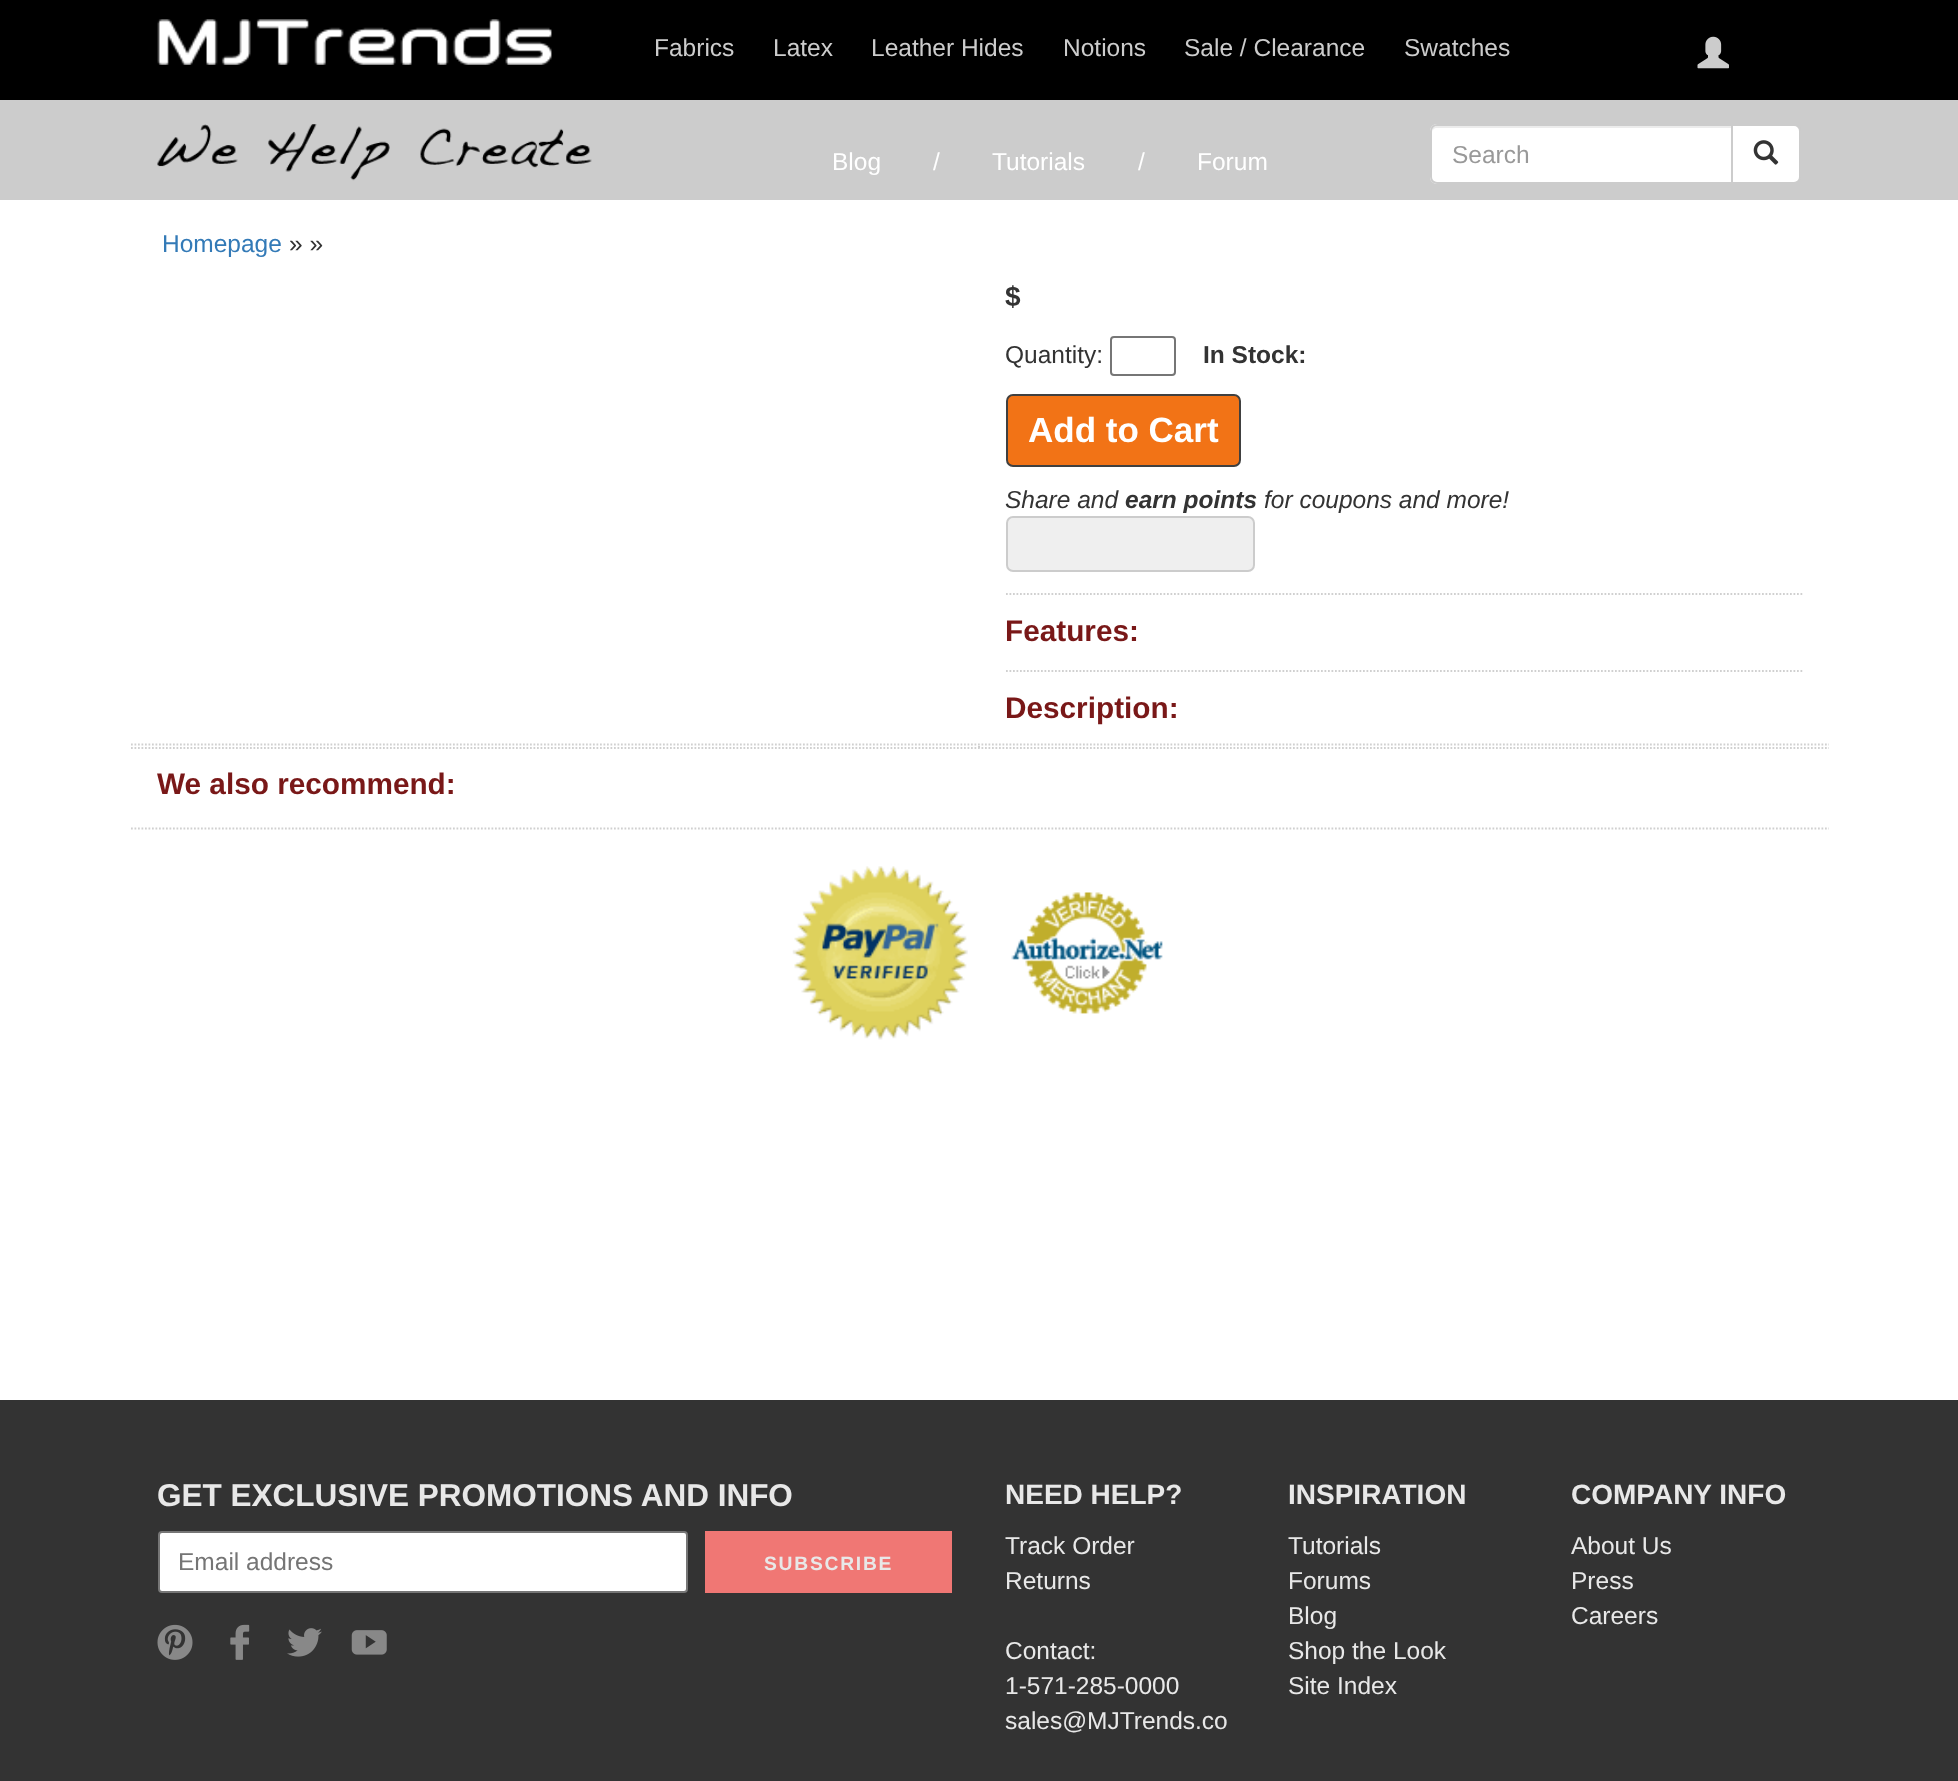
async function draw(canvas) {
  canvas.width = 1958;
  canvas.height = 1781;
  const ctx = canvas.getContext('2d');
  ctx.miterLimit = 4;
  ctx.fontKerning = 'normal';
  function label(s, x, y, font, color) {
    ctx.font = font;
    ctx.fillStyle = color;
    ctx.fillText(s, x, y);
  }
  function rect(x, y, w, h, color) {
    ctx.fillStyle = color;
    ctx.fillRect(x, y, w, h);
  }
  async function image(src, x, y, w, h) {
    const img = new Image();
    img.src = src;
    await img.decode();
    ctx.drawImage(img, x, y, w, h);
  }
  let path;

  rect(0, 0, 1958, 1781, '#fff');
  rect(0, 0, 1958, 100, '#000');
  await image('assets/img1.png', 157, 19, 395, 46);
  label('Fabrics', 654, 56, '24.5px Liberation Sans', '#ccc');
  label('Latex', 773, 56, '24.5px Liberation Sans', '#ccc');
  label('Leather Hides', 871, 56, '24.5px Liberation Sans', '#ccc');
  label('Notions', 1063, 56, '24.5px Liberation Sans', '#ccc');
  label('Sale / Clearance', 1184, 56, '24.5px Liberation Sans', '#ccc');
  label('Swatches', 1404, 56, '24.5px Liberation Sans', '#ccc');
  await image('assets/img2.png', 1697, 36, 32, 33);
  rect(0, 100, 1958, 100, '#ccc');
  await image('assets/img3.png', 157, 124, 435, 57);
  label('Blog', 832, 170, '24.5px Liberation Sans', '#fff');
  label('/', 933, 170, '24.5px Liberation Sans', '#fff');
  label('Tutorials', 992, 170, '24.5px Liberation Sans', '#fff');
  label('/', 1138, 170, '24.5px Liberation Sans', '#fff');
  label('Forum', 1197, 170, '24.5px Liberation Sans', '#fff');
  ctx.beginPath();
  ctx.roundRect(1732, 125, 68, 58, [0, 6, 6, 0]);
  ctx.fill();
  ctx.strokeStyle = '#ccc';
  ctx.lineWidth = 2;
  ctx.stroke();
  ctx.beginPath();
  ctx.roundRect(1430, 124, 303, 60, [7, 0, 0, 7]);
  ctx.fill();
  ctx.fillStyle = '#ececec';
  path = new Path2D('M1437 128H1731V126H1437C1433 126 1432 130 1432 133C1432 130 1434 128 1437 128Z');
  ctx.fill(path);
  ctx.beginPath();
  ctx.roundRect(1431, 125, 301, 58, [6, 0, 0, 6]);
  ctx.stroke();
  label('Search', 1452, 163, '24.5px Liberation Sans', '#999');
  await image('assets/img4.png', 1753, 140, 26, 25);
  label('Homepage', 162, 252, '24.5px Liberation Sans', '#337ab7');
  label('» »', 289, 252, '24.5px Liberation Sans', '#333');
  label('$', 1005, 306, 'bold 28px Liberation Sans', '#333');
  label('Quantity:', 1005, 363, '24.5px Liberation Sans', '#333');
  ctx.beginPath();
  ctx.roundRect(1111, 337, 64, 38, 3);
  ctx.strokeStyle = '#767676';
  ctx.stroke();
  label('In Stock:', 1203, 363, 'bold 24.5px Liberation Sans', '#333');
  ctx.fillStyle = '#f27316';
  ctx.beginPath();
  ctx.roundRect(1007, 395, 233, 71, 6);
  ctx.fill();
  ctx.strokeStyle = '#404040';
  ctx.stroke();
  label('Add to Cart', 1028, 442, 'bold 35px Liberation Sans', '#fff');
  label('Share and', 1005, 508, 'italic 24.5px Liberation Sans', '#333');
  label('earn points', 1125, 508, 'italic bold 24.5px Liberation Sans', '#333');
  label('for coupons and more!', 1264, 508, 'italic 24.5px Liberation Sans', '#333');
  ctx.fillStyle = '#efefef';
  ctx.beginPath();
  ctx.roundRect(1007, 517, 247, 54, 6);
  ctx.fill();
  ctx.strokeStyle = '#ccc';
  ctx.stroke();
  path = new Path2D('M1006 594H1802.5');
  ctx.strokeStyle = '#d0d0d0';
  ctx.lineWidth = 1.8;
  ctx.setLineDash([1.75, 1.75]);
  ctx.stroke(path);
  label('Features:', 1005, 641, 'bold 29.75px Liberation Sans', '#791818');
  path = new Path2D('M1006 671H1802.5');
  ctx.stroke(path);
  label('Description:', 1005, 718, 'bold 29.75px Liberation Sans', '#791818');
  path = new Path2D('M131 744.5H1829');
  ctx.stroke(path);
  rect(978, 746, 2, 2, '#d0d0d0');
  path = new Path2D('M131 748H1829');
  ctx.stroke(path);
  path = new Path2D('M131 828.5H1829');
  ctx.stroke(path);
  label('We also recommend:', 157, 794, 'bold 29.75px Liberation Sans', '#791818');
  await image('assets/img5.png', 792, 866, 176, 174);
  await image('assets/img6.png', 1011, 892, 152, 122);
  rect(0, 1400, 1958, 381, '#333');
  label('GET EXCLUSIVE PROMOTIONS AND INFO', 157, 1506, 'bold 31.5px Liberation Sans', '#e8e8e8');
  ctx.fillStyle = '#fff';
  ctx.beginPath();
  ctx.roundRect(159, 1532, 528, 60, 3);
  ctx.fill();
  ctx.strokeStyle = '#767676';
  ctx.lineWidth = 2;
  ctx.setLineDash([]);
  ctx.stroke();
  label('Email address', 178, 1570, '24.5px Liberation Sans', '#757575');
  rect(705, 1531, 247, 62, '#f07774');
  ctx.letterSpacing = '1.75px';
  label('SUBSCRIBE', 764, 1570, 'bold 19.25px Liberation Sans', '#e8e8e8');
  await image('assets/img7.png', 157, 1624, 36, 36);
  await image('assets/img8.png', 230, 1624, 20, 36);
  await image('assets/img9.png', 287, 1628, 35, 29);
  await image('assets/img10.png', 351, 1630, 36, 25);
  ctx.letterSpacing = '0px';
  label('NEED HELP?', 1005, 1504, 'bold 28px Liberation Sans', '#e8e8e8');
  label('Track Order', 1005, 1554, '24.5px Liberation Sans', '#e8e8e8');
  label('Returns', 1005, 1589, '24.5px Liberation Sans', '#e8e8e8');
  label('Contact:', 1005, 1659, '24.5px Liberation Sans', '#e8e8e8');
  label('1-571-285-0000', 1005, 1694, '24.5px Liberation Sans', '#e8e8e8');
  label('sales@MJTrends.co', 1005, 1729, '24.5px Liberation Sans', '#e8e8e8');
  label('INSPIRATION', 1288, 1504, 'bold 28px Liberation Sans', '#e8e8e8');
  label('Tutorials', 1288, 1554, '24.5px Liberation Sans', '#e8e8e8');
  label('Forums', 1288, 1589, '24.5px Liberation Sans', '#e8e8e8');
  label('Blog', 1288, 1624, '24.5px Liberation Sans', '#e8e8e8');
  label('Shop the Look', 1288, 1659, '24.5px Liberation Sans', '#e8e8e8');
  label('Site Index', 1288, 1694, '24.5px Liberation Sans', '#e8e8e8');
  label('COMPANY INFO', 1571, 1504, 'bold 28px Liberation Sans', '#e8e8e8');
  label('About Us', 1571, 1554, '24.5px Liberation Sans', '#e8e8e8');
  label('Press', 1571, 1589, '24.5px Liberation Sans', '#e8e8e8');
  label('Careers', 1571, 1624, '24.5px Liberation Sans', '#e8e8e8');
}

draw(document.querySelector('canvas'));
